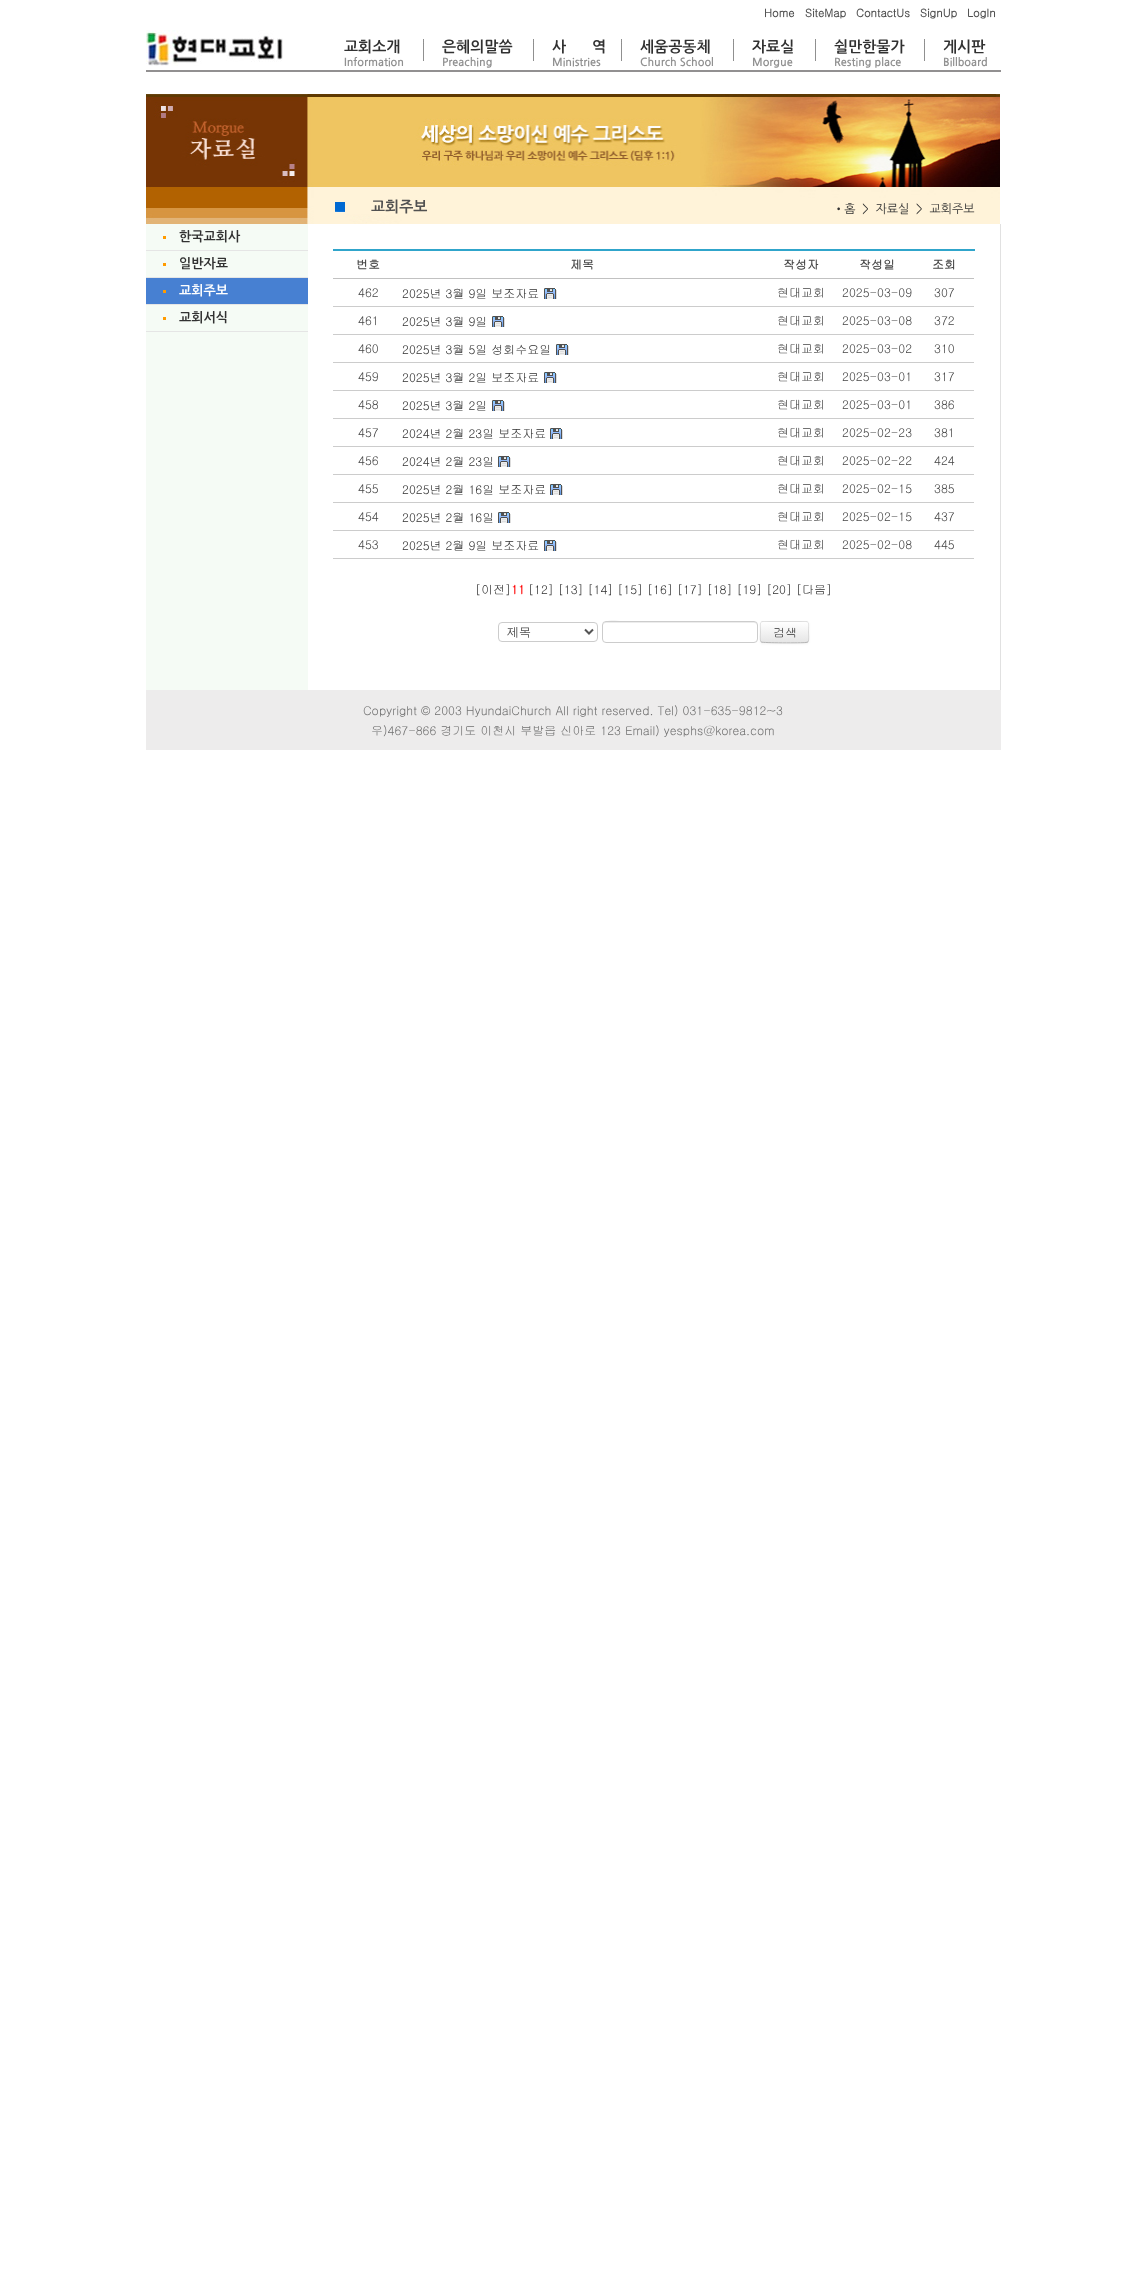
async function draw(canvas) {
  canvas.width = 1146;
  canvas.height = 2274;
  const ctx = canvas.getContext('2d');
  ctx.miterLimit = 4;
  ctx.fontKerning = 'normal';
  function label(s, x, y, font, color) {
    ctx.font = font;
    ctx.fillStyle = color;
    ctx.fillText(s, x, y);
  }
  function rect(x, y, w, h, color) {
    ctx.fillStyle = color;
    ctx.fillRect(x, y, w, h);
  }
  function roundedRect(x, y, w, h, r, color) {
    ctx.fillStyle = color;
    ctx.beginPath();
    ctx.roundRect(x, y, w, h, r);
    ctx.fill();
  }
  async function image(src, x, y, w, h) {
    const img = new Image();
    img.src = src;
    await img.decode();
    ctx.drawImage(img, x, y, w, h);
  }
  let gradient, path;

  rect(0, 0, 1146, 2274, '#fff');
  label('Home', 764, 17, 'bold 11px Gulim', '#515151');
  label('SiteMap', 805, 17, 'bold 11px Gulim', '#515151');
  label('ContactUs', 856, 17, 'bold 11px Gulim', '#515151');
  label('SignUp', 920, 17, 'bold 11px Gulim', '#515151');
  label('LogIn', 967, 17, 'bold 11px Gulim', '#515151');
  rect(146, 70, 855, 2, '#929091');
  await image('assets/img1.png', 146, 30, 137, 36);
  label('교회소개', 344, 52, 'bold 15px NanumGothic', '#313131');
  label('Information', 344, 66, 'bold 11px NanumGothic', '#919191');
  await image('assets/img2.png', 423, 39, 1, 22);
  label('은혜의말씀', 442, 52, 'bold 15px NanumGothic', '#313131');
  label('Preaching', 442, 66, 'bold 11px NanumGothic', '#919191');
  await image('assets/img2.png', 533, 39, 1, 22);
  label('사', 552, 52, 'bold 15px NanumGothic', '#313131');
  label('역', 592, 52, 'bold 15px NanumGothic', '#313131');
  label('Ministries', 552, 66, 'bold 11px NanumGothic', '#919191');
  await image('assets/img2.png', 621, 39, 1, 22);
  label('세움공동체', 640, 52, 'bold 15px NanumGothic', '#313131');
  label('Church School', 640, 66, 'bold 11px NanumGothic', '#919191');
  await image('assets/img2.png', 733, 39, 1, 22);
  label('자료실', 752, 52, 'bold 15px NanumGothic', '#313131');
  label('Morgue', 752, 66, 'bold 11px NanumGothic', '#919191');
  await image('assets/img2.png', 815, 39, 1, 22);
  label('쉴만한물가', 834, 52, 'bold 15px NanumGothic', '#313131');
  label('Resting place', 834, 66, 'bold 11px NanumGothic', '#919191');
  await image('assets/img2.png', 924, 39, 1, 22);
  label('게시판', 943, 52, 'bold 15px NanumGothic', '#313131');
  label('Billboard', 943, 66, 'bold 11px NanumGothic', '#919191');
  await image('assets/img3.png', 146, 94, 854, 130);
  await image('assets/img4.png', 335, 202, 10, 11);
  label('교회주보', 371, 212, 'bold 15px NanumGothic', '#515151');
  label('•홈  >  자료실  >  교회주보', 833, 213, '12px NanumGothic', '#313131');
  rect(146, 332, 162, 358, '#f5fbf5');
  rect(1000, 224, 1, 466, '#e1e1e1');
  rect(146, 224, 162, 26, '#f5fbf5');
  rect(146, 250, 162, 1, '#e5e5e5');
  rect(163, 236, 3, 3, '#ff9b00');
  label('한국교회사', 179, 241, 'bold 13px NanumGothic', '#313131');
  rect(146, 251, 162, 26, '#f5fbf5');
  rect(146, 277, 162, 1, '#e5e5e5');
  rect(163, 263, 3, 3, '#ff9b00');
  label('일반자료', 179, 268, 'bold 13px NanumGothic', '#313131');
  rect(146, 278, 162, 26, '#4780d2');
  rect(146, 304, 162, 1, '#e5e5e5');
  rect(163, 290, 3, 3, '#ff9b00');
  label('교회주보', 179, 295, 'bold 13px NanumGothic', '#fff');
  rect(146, 305, 162, 26, '#f5fbf5');
  rect(146, 331, 162, 1, '#e5e5e5');
  rect(163, 317, 3, 3, '#ff9b00');
  label('교회서식', 179, 322, 'bold 13px NanumGothic', '#313131');
  label('번호', 356, 269, 'bold 12px Gulim', '#454545');
  label('제목', 570, 269, 'bold 12px Gulim', '#454545');
  label('작성자', 783, 269, 'bold 12px Gulim', '#454545');
  label('작성일', 859, 269, 'bold 12px Gulim', '#454545');
  rect(333, 278, 641, 1, '#c1c1c1');
  rect(333, 249, 642, 2, '#30a5cb');
  label('조회', 932, 269, 'bold 12px Gulim', '#454545');
  label('462', 358, 297, '12px Gulim', '#454545');
  label('2025년 3월 9일 보조자료', 402, 298, '12px Gulim', '#313131');
  await image('assets/img5.png', 544, 288, 13, 11);
  label('현대교회', 777, 297, '12px Gulim', '#454545');
  label('2025-03-09', 842, 297, '12px Gulim', '#454545');
  rect(333, 306, 641, 1, '#ccc');
  label('307', 934, 297, '12px Gulim', '#454545');
  label('461', 358, 325, '12px Gulim', '#454545');
  label('2025년 3월 9일', 402, 326, '12px Gulim', '#313131');
  await image('assets/img5.png', 492, 316, 13, 11);
  label('현대교회', 777, 325, '12px Gulim', '#454545');
  label('2025-03-08', 842, 325, '12px Gulim', '#454545');
  rect(333, 334, 641, 1, '#ccc');
  label('372', 934, 325, '12px Gulim', '#454545');
  label('460', 358, 353, '12px Gulim', '#454545');
  label('2025년 3월 5일 성회수요일', 402, 354, '12px Gulim', '#313131');
  await image('assets/img5.png', 556, 344, 13, 11);
  label('현대교회', 777, 353, '12px Gulim', '#454545');
  label('2025-03-02', 842, 353, '12px Gulim', '#454545');
  rect(333, 362, 641, 1, '#ccc');
  label('310', 934, 353, '12px Gulim', '#454545');
  label('459', 358, 381, '12px Gulim', '#454545');
  label('2025년 3월 2일 보조자료', 402, 382, '12px Gulim', '#313131');
  await image('assets/img5.png', 544, 372, 13, 11);
  label('현대교회', 777, 381, '12px Gulim', '#454545');
  label('2025-03-01', 842, 381, '12px Gulim', '#454545');
  rect(333, 390, 641, 1, '#ccc');
  label('317', 934, 381, '12px Gulim', '#454545');
  label('458', 358, 409, '12px Gulim', '#454545');
  label('2025년 3월 2일', 402, 410, '12px Gulim', '#313131');
  await image('assets/img5.png', 492, 400, 13, 11);
  label('현대교회', 777, 409, '12px Gulim', '#454545');
  label('2025-03-01', 842, 409, '12px Gulim', '#454545');
  rect(333, 418, 641, 1, '#ccc');
  label('386', 934, 409, '12px Gulim', '#454545');
  label('457', 358, 437, '12px Gulim', '#454545');
  label('2024년 2월 23일 보조자료', 402, 438, '12px Gulim', '#313131');
  await image('assets/img5.png', 550, 428, 13, 11);
  label('현대교회', 777, 437, '12px Gulim', '#454545');
  label('2025-02-23', 842, 437, '12px Gulim', '#454545');
  rect(333, 446, 641, 1, '#ccc');
  label('381', 934, 437, '12px Gulim', '#454545');
  label('456', 358, 465, '12px Gulim', '#454545');
  label('2024년 2월 23일', 402, 466, '12px Gulim', '#313131');
  await image('assets/img5.png', 498, 456, 13, 11);
  label('현대교회', 777, 465, '12px Gulim', '#454545');
  label('2025-02-22', 842, 465, '12px Gulim', '#454545');
  rect(333, 474, 641, 1, '#ccc');
  label('424', 934, 465, '12px Gulim', '#454545');
  label('455', 358, 493, '12px Gulim', '#454545');
  label('2025년 2월 16일 보조자료', 402, 494, '12px Gulim', '#313131');
  await image('assets/img5.png', 550, 484, 13, 11);
  label('현대교회', 777, 493, '12px Gulim', '#454545');
  label('2025-02-15', 842, 493, '12px Gulim', '#454545');
  rect(333, 502, 641, 1, '#ccc');
  label('385', 934, 493, '12px Gulim', '#454545');
  label('454', 358, 521, '12px Gulim', '#454545');
  label('2025년 2월 16일', 402, 522, '12px Gulim', '#313131');
  await image('assets/img5.png', 498, 512, 13, 11);
  label('현대교회', 777, 521, '12px Gulim', '#454545');
  label('2025-02-15', 842, 521, '12px Gulim', '#454545');
  rect(333, 530, 641, 1, '#ccc');
  label('437', 934, 521, '12px Gulim', '#454545');
  label('453', 358, 549, '12px Gulim', '#454545');
  label('2025년 2월 9일 보조자료', 402, 550, '12px Gulim', '#313131');
  await image('assets/img5.png', 544, 540, 13, 11);
  label('현대교회', 777, 549, '12px Gulim', '#454545');
  label('2025-02-08', 842, 549, '12px Gulim', '#454545');
  rect(333, 558, 641, 1, '#ccc');
  label('445', 934, 549, '12px Gulim', '#454545');
  label('[이전]', 475, 594, '12px Gulim', '#313131');
  label('11', 511, 594, 'bold 12px Gulim', '#f00');
  label('[12] [13] [14] [15] [16] [17] [18] [19] [20] [다음]', 528, 594, '12px Gulim', '#313131');
  ctx.beginPath();
  ctx.roundRect(498.5, 622.5, 99, 19, 3.5);
  ctx.strokeStyle = '#ccc';
  ctx.stroke();
  path = new Path2D('M585 629.5L589 633.5L593 629.5');
  ctx.strokeStyle = '#555';
  ctx.lineWidth = 2;
  ctx.stroke(path);
  label('제목', 507, 636, '500 12px WenQuanYi Zen Hei', '#515151');
  ctx.fillStyle = '#ececec';
  path = new Path2D('M606 623H754C756 623 757 624 757 626C757 624 757 623 755 622H631C623 622 603 617 603 626C603 624 604 623 606 623Z');
  ctx.fill(path);
  ctx.beginPath();
  ctx.roundRect(602.5, 621.5, 155, 21, 3.5);
  ctx.strokeStyle = '#ccc';
  ctx.lineWidth = 1;
  ctx.stroke();
  ctx.fillStyle = '#0000000d';
  ctx.filter = 'blur(1px)';
  ctx.beginPath();
  ctx.roundRect(760, 622, 49, 22, 3);
  ctx.fill();
  ctx.filter = 'none';
  roundedRect(760, 621, 49, 22, 3, '#f5f5f5');
  ctx.save();
  ctx.beginPath();
  ctx.roundRect(760, 621, 49, 22, 3);
  ctx.clip();
  gradient = ctx.createLinearGradient(785, 622, 785, 642);
  gradient.addColorStop(0, '#fff');
  gradient.addColorStop(1, '#e6e6e6');
  ctx.fillStyle = gradient;
  ctx.fillRect(760, 622, 49, 20);
  ctx.restore();
  ctx.fillStyle = '#fefefe';
  path = new Path2D('M763 623H806C807 623 808 624 808 625C808 620 803 622 799 622H770C766 622 761 620 761 625C761 624 762 623 763 623Z');
  ctx.fill(path);
  path = new Path2D('M808 642L806 642.5C802 643 762.5 643 761 642');
  ctx.strokeStyle = '#b3b3b3';
  ctx.stroke(path);
  path = new Path2D('M761 642C759.5 640 760.5 634 760.5 632C760.5 620.5 758.5 621.5 770 621.5H799C810.5 621.5 808.5 620.5 808.5 632C808.5 634 809.5 640 808 642');
  ctx.strokeStyle = '#0000001a';
  ctx.stroke(path);
  label('검색', 773, 637, '12px Gulim', '#313131');
  rect(146, 690, 855, 60, '#edecec');
  label('Copyright © 2003 HyundaiChurch All right reserved. Tel) 031-635-9812~3', 363, 715, '12px Gulim', '#717171');
  label('우)467-866 경기도 이천시 부발읍 신아로 123 Email) yesphs@korea.com', 371, 735, '12px Gulim', '#717171');
}

draw(document.querySelector('canvas'));
